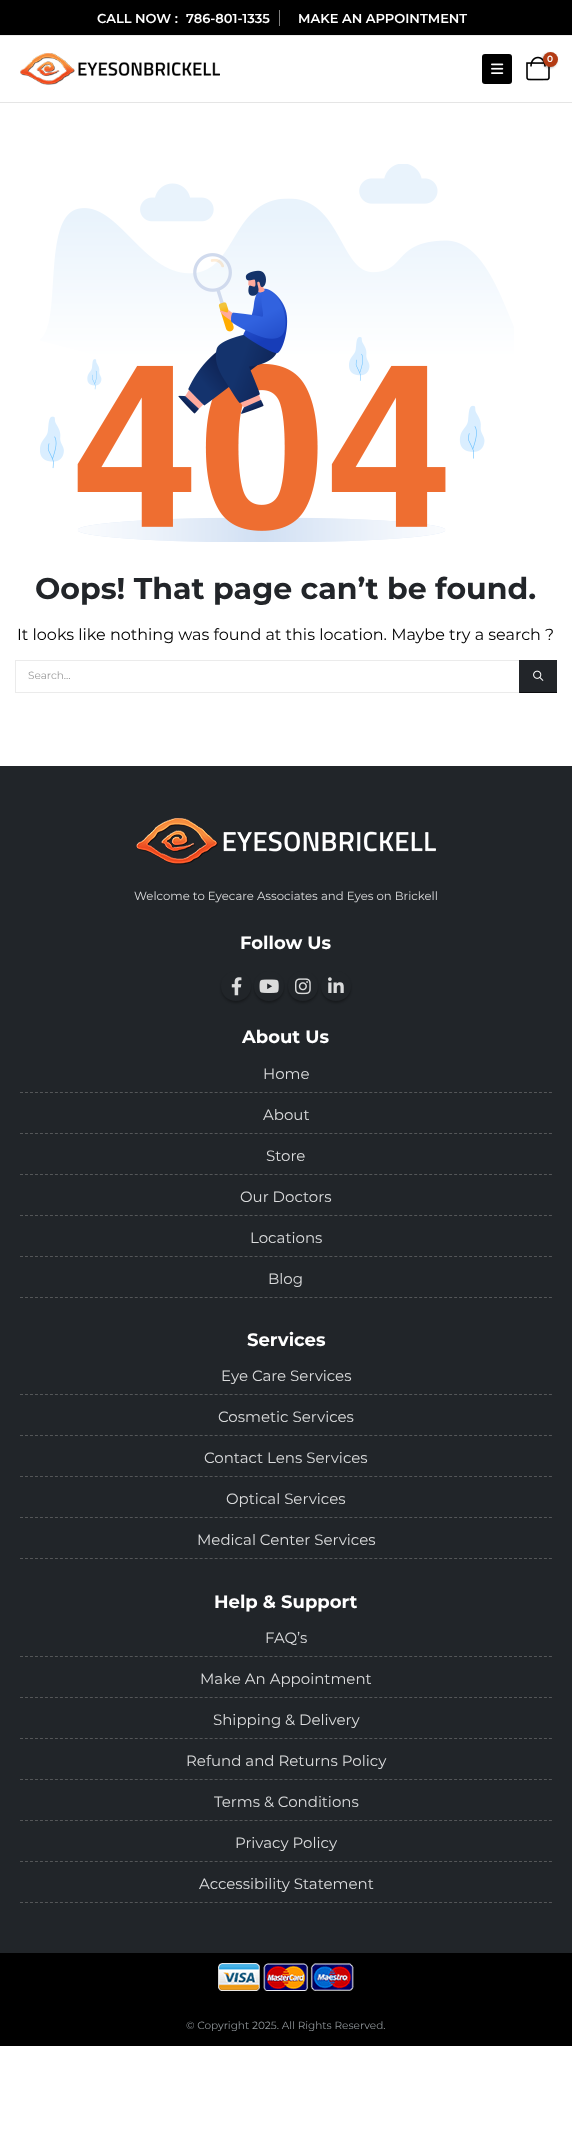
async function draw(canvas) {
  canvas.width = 572;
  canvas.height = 2152;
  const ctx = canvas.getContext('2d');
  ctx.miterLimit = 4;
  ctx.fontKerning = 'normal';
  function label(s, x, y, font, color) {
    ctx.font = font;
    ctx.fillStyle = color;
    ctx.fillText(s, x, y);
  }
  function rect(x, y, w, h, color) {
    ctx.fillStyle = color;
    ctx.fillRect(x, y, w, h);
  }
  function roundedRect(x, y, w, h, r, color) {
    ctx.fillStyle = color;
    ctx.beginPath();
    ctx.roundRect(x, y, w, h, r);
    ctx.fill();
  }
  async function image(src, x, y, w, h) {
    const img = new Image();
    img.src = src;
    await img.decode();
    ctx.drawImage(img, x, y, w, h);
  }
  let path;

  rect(0, 0, 572, 2152, '#fff');
  rect(0, 0, 572, 35, '#000');
  label('CALL NOW :', 97, 23, '600 13px Montserrat', '#fff');
  label('786-801-1335', 186, 23, '600 13px Montserrat', '#fff');
  rect(279, 10, 1, 16, '#808080');
  label('MAKE AN APPOINTMENT', 298, 23, '600 13px Montserrat', '#fff');
  rect(0, 35, 572, 1, '#ededed');
  rect(0, 102, 572, 1, '#e5e5e5');
  await image('assets/img1.png', 20, 53, 200, 32);
  roundedRect(482, 54, 30, 30, 3, '#000');
  await image('assets/img2.png', 491, 63, 13, 11);
  await image('assets/img3.png', 526, 56, 24, 25);
  ctx.fillStyle = '#0000004d';
  ctx.filter = 'blur(1px)';
  ctx.beginPath();
  ctx.roundRect(542, 53, 15, 15, 7.5);
  ctx.fill();
  ctx.filter = 'none';
  ctx.fillStyle = '#b43c14';
  ctx.beginPath();
  ctx.arc(550.5, 59.5, 7.5, 0, 2 * Math.PI);
  ctx.fill();
  label('0', 547, 62, '600 9px Montserrat', '#fff');
  await image('assets/img4.png', 40, 164, 474, 378);
  label('Oops! That page can’t be found.', 35, 599, 'bold 30px Montserrat', '#222529');
  label('It looks like nothing was found at this location. Maybe try a search ?', 17, 640, '16px Montserrat', '#000');
  ctx.strokeStyle = '#ebebeb';
  ctx.strokeRect(15.5, 660.5, 504, 32);
  label('Search…', 28, 679, '10.5px Montserrat', '#999');
  rect(520, 660, 37, 32, '#222529');
  rect(519, 692, 38, 1, '#0b0c0e');
  rect(519, 660, 1, 33, '#222529');
  await image('assets/img5.png', 533, 670, 11, 11);
  rect(0, 766, 572, 1187, '#212529');
  await image('assets/img6.png', 136, 818, 300, 47);
  label('Welcome to Eyecare Associates and Eyes on Brickell', 134, 900, '11.7px Montserrat', '#dbdcdd');
  label('Follow Us', 240, 949, 'bold 18px Montserrat', '#fff');
  ctx.save();
  path = new Path2D('M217 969H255V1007H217ZM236 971C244.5 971 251 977.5 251 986C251 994.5 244.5 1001 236 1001C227.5 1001 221 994.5 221 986C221 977.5 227.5 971 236 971Z');
  ctx.clip(path, 'evenodd');
  ctx.fillStyle = '#0000004d';
  ctx.filter = 'blur(1px)';
  ctx.beginPath();
  ctx.roundRect(221, 973, 30, 30, 15);
  ctx.fill();
  ctx.filter = 'none';
  ctx.restore();
  await image('assets/img7.png', 231, 977, 11, 19);
  ctx.save();
  path = new Path2D('M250 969H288V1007H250ZM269 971C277.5 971 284 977.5 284 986C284 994.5 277.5 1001 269 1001C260.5 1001 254 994.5 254 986C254 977.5 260.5 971 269 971Z');
  ctx.clip(path, 'evenodd');
  ctx.fillStyle = '#0000004d';
  ctx.filter = 'blur(1px)';
  ctx.beginPath();
  ctx.roundRect(254, 973, 30, 30, 15);
  ctx.fill();
  ctx.filter = 'none';
  ctx.restore();
  await image('assets/img8.png', 259, 979, 20, 14);
  ctx.save();
  path = new Path2D('M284 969H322V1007H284ZM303 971C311.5 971 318 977.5 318 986C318 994.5 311.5 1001 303 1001C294.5 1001 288 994.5 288 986C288 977.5 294.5 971 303 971Z');
  ctx.clip(path, 'evenodd');
  ctx.fillStyle = '#0000004d';
  ctx.filter = 'blur(1px)';
  ctx.beginPath();
  ctx.roundRect(288, 973, 30, 30, 15);
  ctx.fill();
  ctx.filter = 'none';
  ctx.restore();
  await image('assets/img9.png', 295, 978, 16, 17);
  ctx.save();
  path = new Path2D('M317 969H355V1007H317ZM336 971C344.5 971 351 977.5 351 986C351 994.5 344.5 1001 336 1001C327.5 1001 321 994.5 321 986C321 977.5 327.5 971 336 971Z');
  ctx.clip(path, 'evenodd');
  ctx.fillStyle = '#0000004d';
  ctx.filter = 'blur(1px)';
  ctx.beginPath();
  ctx.roundRect(321, 973, 30, 30, 15);
  ctx.fill();
  ctx.filter = 'none';
  ctx.restore();
  await image('assets/img10.png', 328, 977, 16, 16);
  label('About Us', 242, 1043, 'bold 18px Montserrat', '#fff');
  path = new Path2D('M20 1092.5H552');
  ctx.strokeStyle = '#545658';
  ctx.setLineDash([3, 1.99]);
  ctx.stroke(path);
  label('Home', 263, 1079, '15px Montserrat', '#dbdcdd');
  path = new Path2D('M20 1133.5H552');
  ctx.stroke(path);
  label('About', 263, 1120, '15px Montserrat', '#dbdcdd');
  path = new Path2D('M20 1174.5H552');
  ctx.stroke(path);
  label('Store', 266, 1161, '15px Montserrat', '#dbdcdd');
  path = new Path2D('M20 1215.5H552');
  ctx.stroke(path);
  label('Our Doctors', 240, 1202, '15px Montserrat', '#dbdcdd');
  path = new Path2D('M20 1256.5H552');
  ctx.stroke(path);
  label('Locations', 250, 1243, '15px Montserrat', '#dbdcdd');
  path = new Path2D('M20 1297.5H552');
  ctx.stroke(path);
  label('Blog', 268, 1284, '15px Montserrat', '#dbdcdd');
  label('Services', 247, 1346, 'bold 18px Montserrat', '#fff');
  path = new Path2D('M20 1394.5H552');
  ctx.stroke(path);
  label('Eye Care Services', 221, 1381, '15px Montserrat', '#dbdcdd');
  path = new Path2D('M20 1435.5H552');
  ctx.stroke(path);
  label('Cosmetic Services', 218, 1422, '15px Montserrat', '#dbdcdd');
  path = new Path2D('M20 1476.5H552');
  ctx.stroke(path);
  label('Contact Lens Services', 204, 1463, '15px Montserrat', '#dbdcdd');
  path = new Path2D('M20 1517.5H552');
  ctx.stroke(path);
  label('Optical Services', 226, 1504, '15px Montserrat', '#dbdcdd');
  path = new Path2D('M20 1558.5H552');
  ctx.stroke(path);
  label('Medical Center Services', 197, 1545, '15px Montserrat', '#dbdcdd');
  label('Help & Support', 214, 1608, 'bold 18px Montserrat', '#fff');
  path = new Path2D('M20 1656.5H552');
  ctx.stroke(path);
  label('FAQ’s', 265, 1643, '15px Montserrat', '#dbdcdd');
  path = new Path2D('M20 1697.5H552');
  ctx.stroke(path);
  label('Make An Appointment', 200, 1684, '15px Montserrat', '#dbdcdd');
  path = new Path2D('M20 1738.5H552');
  ctx.stroke(path);
  label('Shipping & Delivery', 213, 1725, '15px Montserrat', '#dbdcdd');
  path = new Path2D('M20 1779.5H552');
  ctx.stroke(path);
  label('Refund and Returns Policy', 186, 1766, '15px Montserrat', '#dbdcdd');
  path = new Path2D('M20 1820.5H552');
  ctx.stroke(path);
  label('Terms & Conditions', 214, 1807, '15px Montserrat', '#dbdcdd');
  path = new Path2D('M20 1861.5H552');
  ctx.stroke(path);
  label('Privacy Policy', 235, 1848, '15px Montserrat', '#dbdcdd');
  path = new Path2D('M20 1902.5H552');
  ctx.stroke(path);
  label('Accessibility Statement', 199, 1889, '15px Montserrat', '#dbdcdd');
  rect(0, 1953, 572, 93, '#000');
  await image('assets/img11.png', 218, 1963, 136, 28);
  label('© Copyright 2025. All Rights Reserved.', 186, 2029, '10.5px Montserrat', '#90969a');
}

draw(document.querySelector('canvas'));
